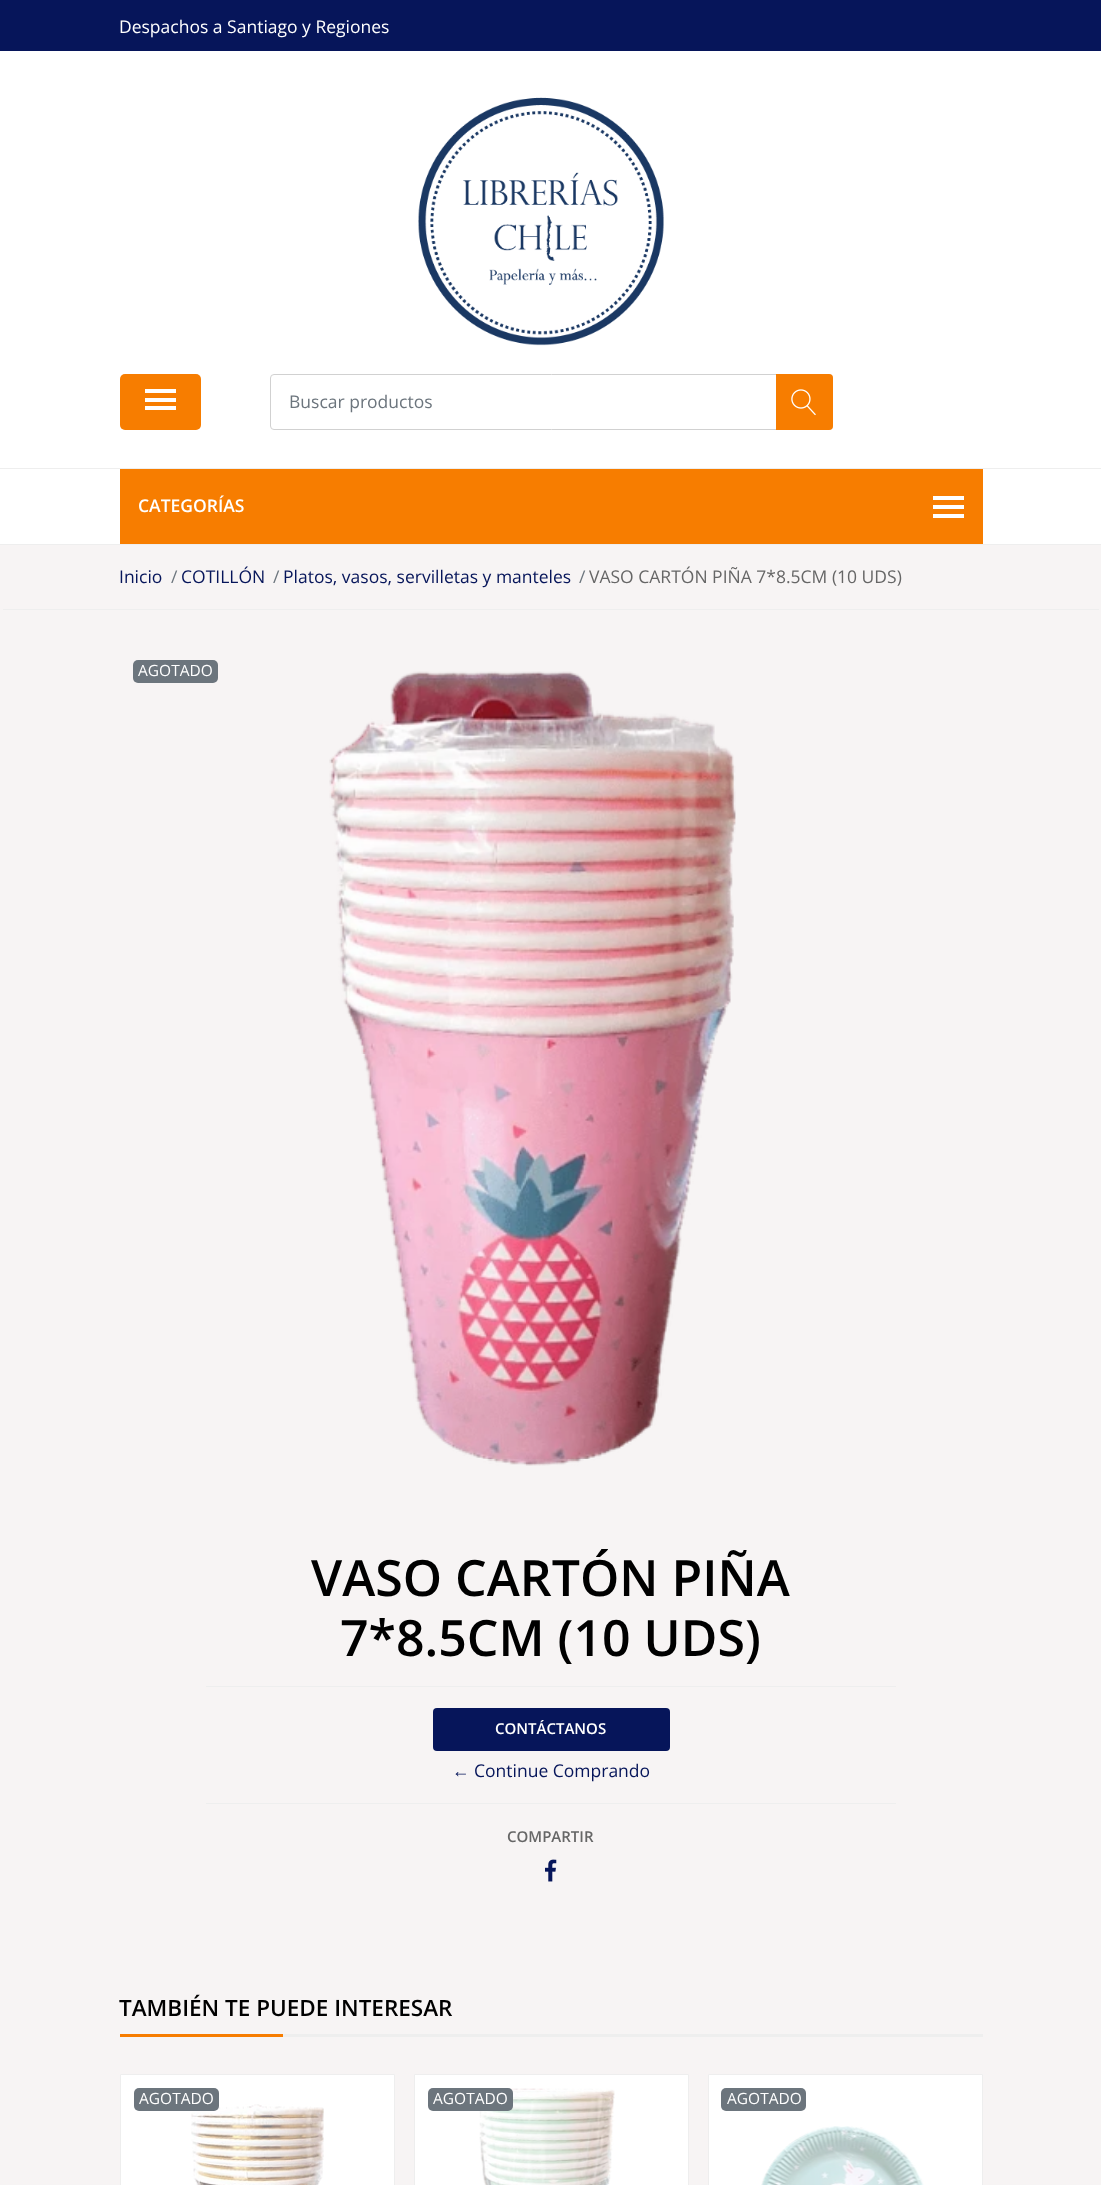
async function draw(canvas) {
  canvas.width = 1101;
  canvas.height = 2185;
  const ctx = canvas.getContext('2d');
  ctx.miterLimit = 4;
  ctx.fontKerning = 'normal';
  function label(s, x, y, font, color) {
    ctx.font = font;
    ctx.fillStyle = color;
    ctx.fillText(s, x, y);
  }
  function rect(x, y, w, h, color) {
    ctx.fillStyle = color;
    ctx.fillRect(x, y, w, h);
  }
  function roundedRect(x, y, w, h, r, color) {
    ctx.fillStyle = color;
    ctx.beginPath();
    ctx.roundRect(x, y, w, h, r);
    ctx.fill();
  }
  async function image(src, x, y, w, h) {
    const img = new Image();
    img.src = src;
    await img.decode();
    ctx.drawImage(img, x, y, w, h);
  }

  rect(0, 0, 1101, 2185, '#f7f4f4');
  rect(0, 51, 1101, 493, '#fff');
  rect(0, 0, 1101, 51, '#06155a');
  label('Despachos a Santiago y Regiones', 119, 33, '17.5px Open Sans', '#fff');
  await image('assets/img1.png', 418, 97, 246, 249);
  roundedRect(120, 374, 81, 56, 5, '#f77d00');
  rect(145, 389, 31, 4, '#fff');
  rect(145, 398, 31, 4, '#fff');
  rect(145, 406, 31, 4, '#fff');
  ctx.beginPath();
  ctx.roundRect(270.5, 374.5, 562, 55, 3.5);
  ctx.strokeStyle = '#d1d1d1';
  ctx.stroke();
  label('Buscar productos', 289, 408, '17.5px Open Sans', '#6c757d');
  ctx.fillStyle = '#f77d00';
  ctx.beginPath();
  ctx.roundRect(776, 374, 57, 56, [0, 4, 4, 0]);
  ctx.fill();
  await image('assets/img2.png', 791, 389, 25, 27);
  rect(0, 468, 1101, 1, '#eee');
  rect(0, 544, 1101, 1, '#eee');
  rect(120, 469, 863, 75, '#f77d00');
  label('CATEGORÍAS', 138, 512, '600 17.5px Open Sans', '#fff');
  rect(933, 496, 31, 4, '#fff');
  rect(933, 505, 31, 4, '#fff');
  rect(933, 514, 31, 4, '#fff');
  rect(3, 609, 1096, 1, '#eee');
  label('Inicio', 119, 583, '17.5px Open Sans', '#06155a');
  label('/', 171, 583, '17.5px Open Sans', '#6c757d');
  label('COTILLÓN', 181, 583, '17.5px Open Sans', '#06155a');
  label('/', 273, 583, '17.5px Open Sans', '#6c757d');
  label('Platos, vasos, servilletas y manteles', 283, 583, '17.5px Open Sans', '#06155a');
  label('/', 579, 583, '17.5px Open Sans', '#6c757d');
  label('VASO CARTÓN PIÑA 7*8.5CM (10 UDS)', 589, 583, '17.5px Open Sans', '#666');
  roundedRect(133, 660, 85, 23, 5, '#6c757d');
  label('AGOTADO', 138, 676, '15.5px Open Sans', '#fff');
  await image('assets/img3.png', 329, 671, 407, 795);
  rect(206, 1686, 690, 1, '#eee');
  label('VASO CARTÓN PIÑA', 311, 1596, '600 50px Open Sans', '#000');
  label('7*8.5CM (10 UDS)', 340, 1656, '600 50px Open Sans', '#000');
  rect(206, 1803, 690, 1, '#eee');
  roundedRect(433, 1708, 237, 43, 4, '#06155a');
  label('CONTÁCTANOS', 495, 1734, '600 15px Open Sans', '#fff');
  label('←', 452, 1777, '17.5px Liberation Serif', '#06155a');
  label('Continue Comprando', 474, 1777, '17.5px Open Sans', '#06155a');
  label('COMPARTIR', 507, 1842, '600 15px Open Sans', '#666');
  await image('assets/img4.png', 545, 1859, 12, 23);
  rect(283, 2034, 700, 3, '#eee');
  label('TAMBIÉN TE PUEDE INTERESAR', 119, 2016, '600 22.5px Open Sans', '#000');
  rect(120, 2034, 163, 3, '#f77d00');
  ctx.fillStyle = '#fff';
  ctx.beginPath();
  ctx.rect(120.5, 2074.5, 274, 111);
  ctx.fill();
  ctx.strokeStyle = '#eee';
  ctx.stroke();
  await image('assets/img5.png', 191, 2104, 133, 81);
  roundedRect(134, 2088, 85, 23, 5, '#6c757d');
  label('AGOTADO', 139, 2104, '15.5px Open Sans', '#fff');
  ctx.beginPath();
  ctx.rect(414.5, 2074.5, 274, 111);
  ctx.fill();
  ctx.stroke();
  await image('assets/img6.png', 479, 2088, 136, 97);
  roundedRect(428, 2088, 85, 23, 5, '#6c757d');
  label('AGOTADO', 433, 2104, '15.5px Open Sans', '#fff');
  ctx.beginPath();
  ctx.rect(708.5, 2074.5, 274, 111);
  ctx.fill();
  ctx.stroke();
  roundedRect(721, 2088, 85, 23, 5, '#6c757d');
  label('AGOTADO', 727, 2104, '15.5px Open Sans', '#fff');
  await image('assets/img7.png', 761, 2126, 163, 59);
}

draw(document.querySelector('canvas'));
